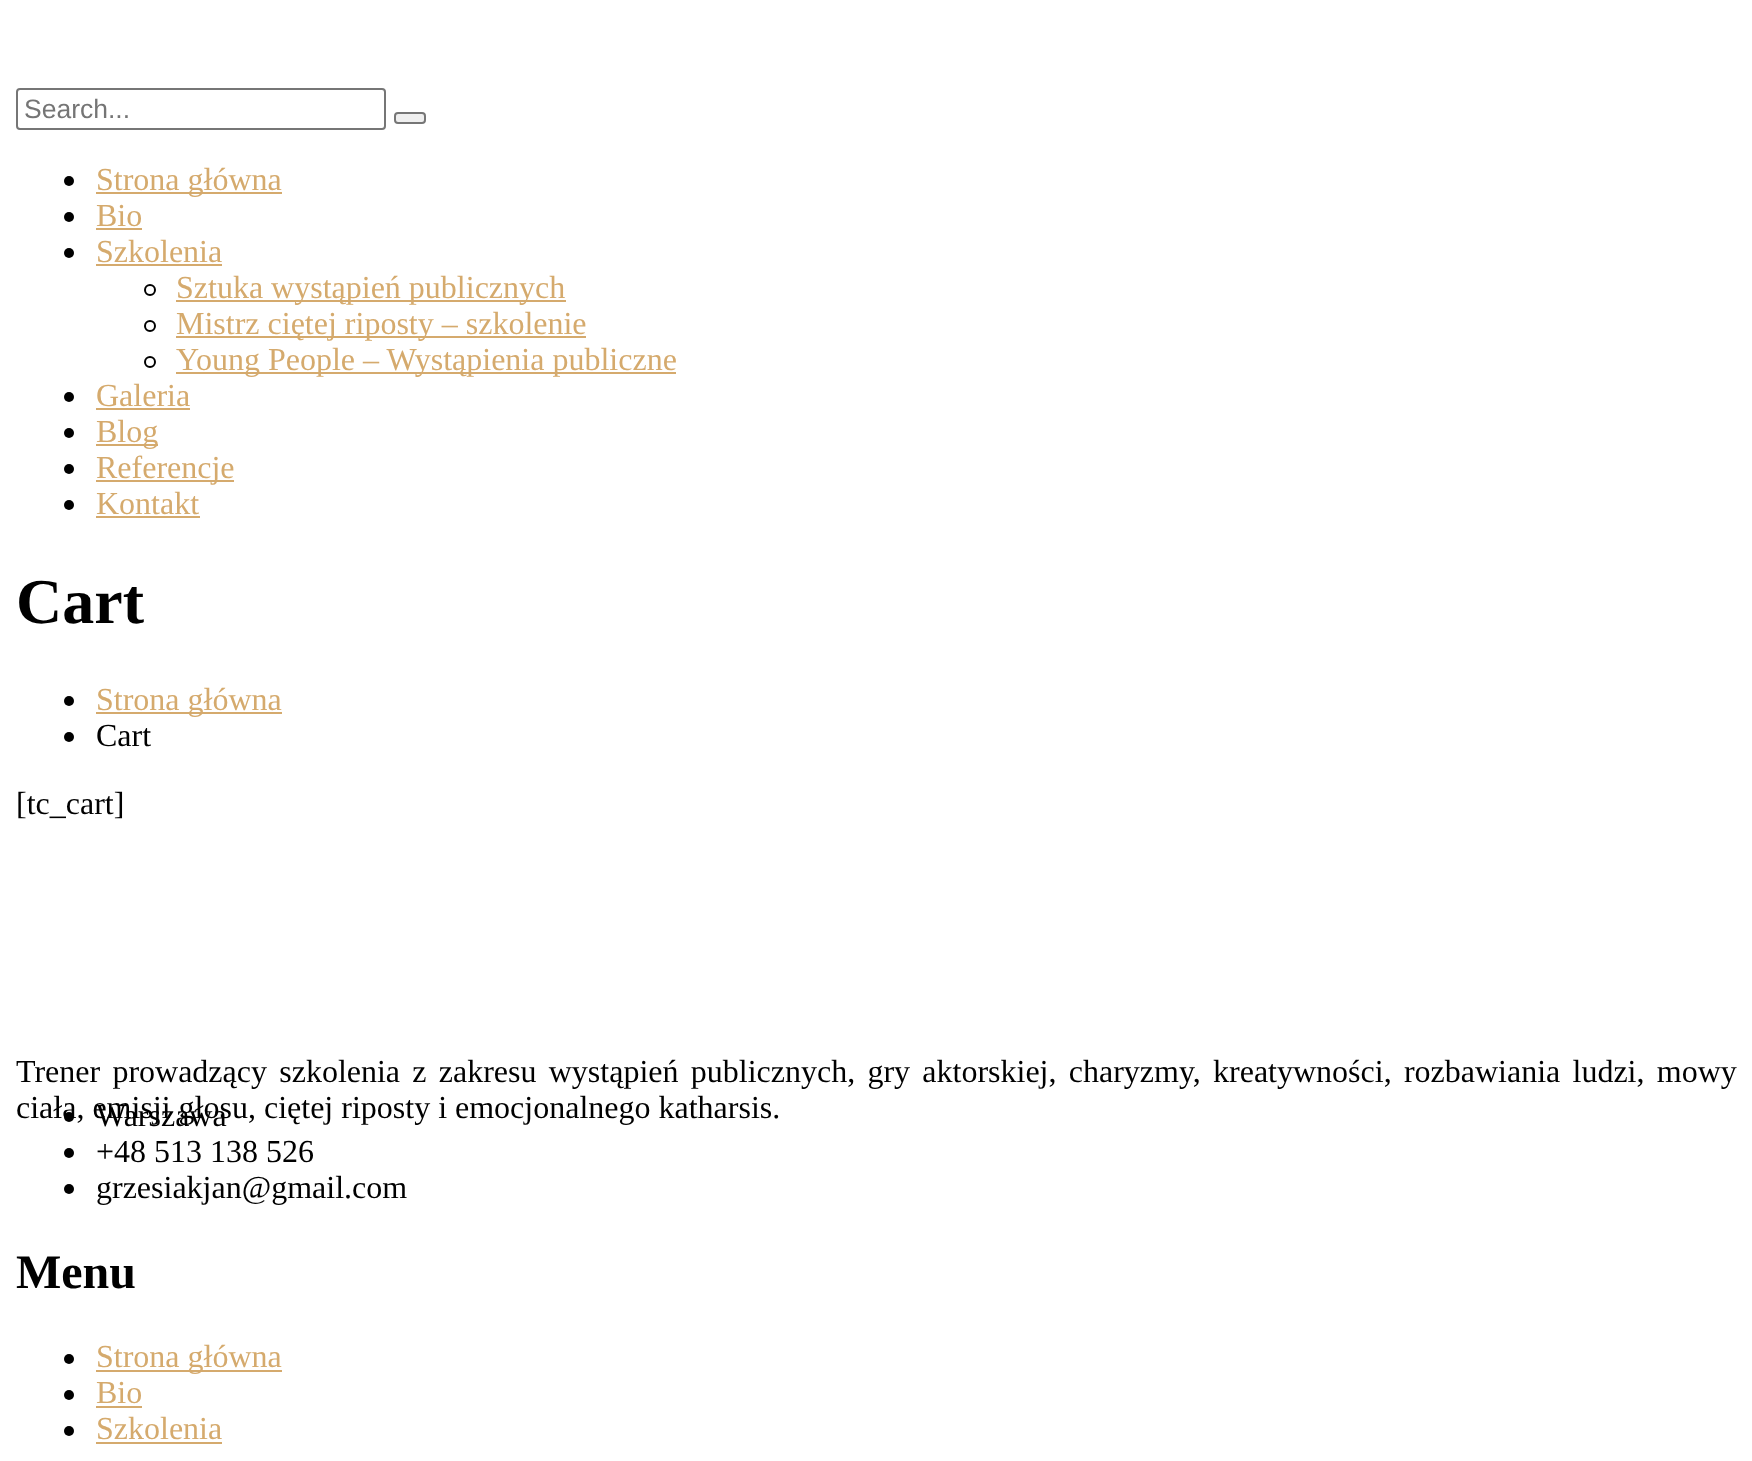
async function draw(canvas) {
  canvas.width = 1752;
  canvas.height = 1461;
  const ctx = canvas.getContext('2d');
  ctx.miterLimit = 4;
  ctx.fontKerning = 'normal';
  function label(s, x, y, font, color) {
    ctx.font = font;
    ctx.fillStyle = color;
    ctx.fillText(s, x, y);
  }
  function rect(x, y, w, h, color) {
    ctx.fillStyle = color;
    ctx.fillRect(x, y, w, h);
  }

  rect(0, 0, 1752, 1461, '#fff');
  ctx.beginPath();
  ctx.roundRect(17, 89, 368, 40, 3);
  ctx.strokeStyle = '#767676';
  ctx.lineWidth = 2;
  ctx.stroke();
  label('Search...', 24, 118, '26.5px Liberation Sans', '#757575');
  ctx.fillStyle = '#efefef';
  ctx.beginPath();
  ctx.roundRect(395, 113, 30, 10, 3);
  ctx.fill();
  ctx.stroke();
  ctx.fillStyle = '#000';
  ctx.beginPath();
  ctx.arc(69, 181, 5, 0, 2 * Math.PI);
  ctx.fill();
  rect(96, 192, 186, 2, '#d5aa6d');
  label('Strona główna', 96, 190, '32px Liberation Serif', '#d5aa6d');
  ctx.fillStyle = '#000';
  ctx.beginPath();
  ctx.arc(69, 217, 5, 0, 2 * Math.PI);
  ctx.fill();
  label('Bio', 96, 226, '32px Liberation Serif', '#d5aa6d');
  rect(96, 228, 46, 2, '#d5aa6d');
  ctx.fillStyle = '#000';
  ctx.beginPath();
  ctx.arc(69, 253, 5, 0, 2 * Math.PI);
  ctx.fill();
  label('Szkolenia', 96, 262, '32px Liberation Serif', '#d5aa6d');
  rect(96, 264, 126, 2, '#d5aa6d');
  ctx.beginPath();
  ctx.arc(150, 290, 5, 0, 2 * Math.PI);
  ctx.strokeStyle = '#000';
  ctx.stroke();
  rect(176, 300, 390, 2, '#d5aa6d');
  label('Sztuka wystąpień publicznych', 176, 298, '32px Liberation Serif', '#d5aa6d');
  ctx.beginPath();
  ctx.arc(150, 326, 5, 0, 2 * Math.PI);
  ctx.stroke();
  rect(176, 336, 410, 2, '#d5aa6d');
  label('Mistrz ciętej riposty – szkolenie', 176, 334, '32px Liberation Serif', '#d5aa6d');
  ctx.beginPath();
  ctx.arc(150, 362, 5, 0, 2 * Math.PI);
  ctx.stroke();
  rect(176, 372, 500, 2, '#d5aa6d');
  label('Young People – Wystąpienia publiczne', 176, 370, '32px Liberation Serif', '#d5aa6d');
  ctx.fillStyle = '#000';
  ctx.beginPath();
  ctx.arc(69, 397, 5, 0, 2 * Math.PI);
  ctx.fill();
  label('Galeria', 96, 406, '32px Liberation Serif', '#d5aa6d');
  rect(96, 408, 94, 2, '#d5aa6d');
  ctx.fillStyle = '#000';
  ctx.beginPath();
  ctx.arc(69, 433, 5, 0, 2 * Math.PI);
  ctx.fill();
  rect(96, 444, 62, 2, '#d5aa6d');
  label('Blog', 96, 442, '32px Liberation Serif', '#d5aa6d');
  ctx.fillStyle = '#000';
  ctx.beginPath();
  ctx.arc(69, 469, 5, 0, 2 * Math.PI);
  ctx.fill();
  rect(96, 480, 138, 2, '#d5aa6d');
  label('Referencje', 96, 478, '32px Liberation Serif', '#d5aa6d');
  ctx.fillStyle = '#000';
  ctx.beginPath();
  ctx.arc(69, 505, 5, 0, 2 * Math.PI);
  ctx.fill();
  label('Kontakt', 96, 514, '32px Liberation Serif', '#d5aa6d');
  rect(96, 516, 104, 2, '#d5aa6d');
  label('Cart', 16, 623, 'bold 64px Liberation Serif', '#000');
  ctx.beginPath();
  ctx.arc(69, 701, 5, 0, 2 * Math.PI);
  ctx.fill();
  rect(96, 712, 186, 2, '#d5aa6d');
  label('Strona główna', 96, 710, '32px Liberation Serif', '#d5aa6d');
  ctx.fillStyle = '#000';
  ctx.beginPath();
  ctx.arc(69, 737, 5, 0, 2 * Math.PI);
  ctx.fill();
  label('Cart', 96, 746, '32px Liberation Serif', '#000');
  label('[tc_cart]', 16, 814, '32px Liberation Serif', '#000');
  ctx.wordSpacing = '4.25px';
  label('Trener prowadzący szkolenia z zakresu wystąpień publicznych, gry aktorskiej, charyzmy, kreatywności, rozbawiania ludzi, mowy', 16, 1082, '32px Liberation Serif', '#000');
  ctx.wordSpacing = '0px';
  label('ciała, emisji głosu, ciętej riposty i emocjonalnego katharsis.', 16, 1118, '32px Liberation Serif', '#000');
  ctx.beginPath();
  ctx.arc(69, 1117, 5, 0, 2 * Math.PI);
  ctx.fill();
  label('Warszawa', 96, 1126, '32px Liberation Serif', '#000');
  ctx.beginPath();
  ctx.arc(69, 1153, 5, 0, 2 * Math.PI);
  ctx.fill();
  label('+48 513 138 526', 96, 1162, '32px Liberation Serif', '#000');
  ctx.beginPath();
  ctx.arc(69, 1189, 5, 0, 2 * Math.PI);
  ctx.fill();
  label('grzesiakjan@gmail.com', 96, 1198, '32px Liberation Serif', '#000');
  label('Menu', 16, 1288, 'bold 48px Liberation Serif', '#000');
  ctx.beginPath();
  ctx.arc(69, 1359, 5, 0, 2 * Math.PI);
  ctx.fill();
  rect(96, 1370, 186, 2, '#d5aa6d');
  label('Strona główna', 96, 1367, '32px Liberation Serif', '#d5aa6d');
  ctx.fillStyle = '#000';
  ctx.beginPath();
  ctx.arc(69, 1395, 5, 0, 2 * Math.PI);
  ctx.fill();
  label('Bio', 96, 1403, '32px Liberation Serif', '#d5aa6d');
  rect(96, 1406, 46, 2, '#d5aa6d');
  ctx.fillStyle = '#000';
  ctx.beginPath();
  ctx.arc(69, 1431, 5, 0, 2 * Math.PI);
  ctx.fill();
  label('Szkolenia', 96, 1439, '32px Liberation Serif', '#d5aa6d');
  rect(96, 1442, 126, 2, '#d5aa6d');
}

draw(document.querySelector('canvas'));
